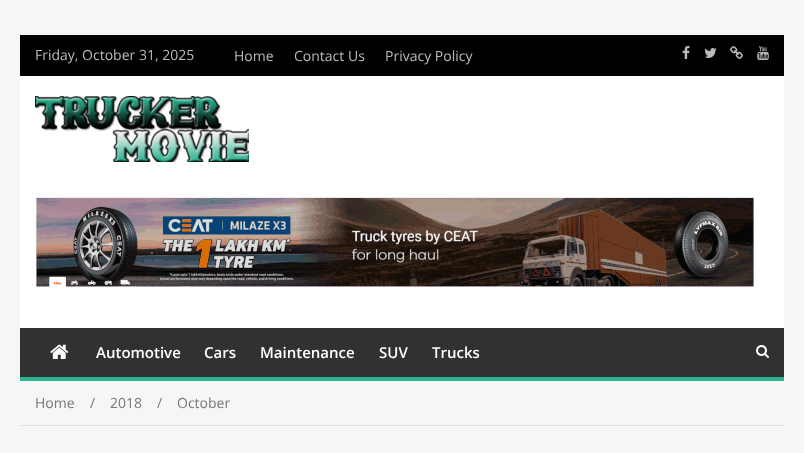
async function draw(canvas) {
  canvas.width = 804;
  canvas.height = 453;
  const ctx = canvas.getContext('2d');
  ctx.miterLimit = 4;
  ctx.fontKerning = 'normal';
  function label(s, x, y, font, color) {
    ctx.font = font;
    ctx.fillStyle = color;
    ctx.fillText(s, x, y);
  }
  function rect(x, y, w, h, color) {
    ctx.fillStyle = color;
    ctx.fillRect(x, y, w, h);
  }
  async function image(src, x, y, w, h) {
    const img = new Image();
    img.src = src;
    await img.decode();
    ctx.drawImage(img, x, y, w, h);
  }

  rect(0, 0, 804, 453, '#f6f6f6');
  rect(20, 76, 764, 252, '#fff');
  rect(20, 35, 764, 41, '#000');
  label('Friday, October 31, 2025', 35, 60, '14px Open Sans', '#bbb');
  label('Home', 234, 61, '14px Open Sans', '#bbb');
  label('Contact Us', 294, 61, '14px Open Sans', '#bbb');
  label('Privacy Policy', 385, 61, '14px Open Sans', '#bbb');
  await image('assets/img1.png', 682, 46, 8, 13);
  await image('assets/img2.png', 704, 48, 13, 10);
  await image('assets/img3.png', 730, 46, 13, 13);
  await image('assets/img4.png', 757, 46, 12, 14);
  await image('assets/img5.png', 35, 96, 214, 66);
  await image('assets/img6.png', 36, 197, 718, 90);
  rect(20, 328, 764, 49, '#313131');
  rect(20, 377, 764, 4, '#2ab391');
  await image('assets/img7.png', 50, 344, 19, 15);
  label('Automotive', 96, 358, '600 15px Open Sans', '#fff');
  label('Cars', 204, 358, '600 15px Open Sans', '#fff');
  label('Maintenance', 260, 358, '600 15px Open Sans', '#fff');
  label('SUV', 379, 358, '600 15px Open Sans', '#fff');
  label('Trucks', 432, 358, '600 15px Open Sans', '#fff');
  await image('assets/img8.png', 756, 345, 13, 13);
  rect(20, 425, 764, 1, '#ddd');
  label('Home', 35, 408, '14px Open Sans', '#777');
  label('/', 90, 408, '14px Open Sans', '#777');
  label('2018', 110, 408, '14px Open Sans', '#777');
  label('/', 157, 408, '14px Open Sans', '#777');
  label('October', 177, 408, '14px Open Sans', '#777');
}

draw(document.querySelector('canvas'));
